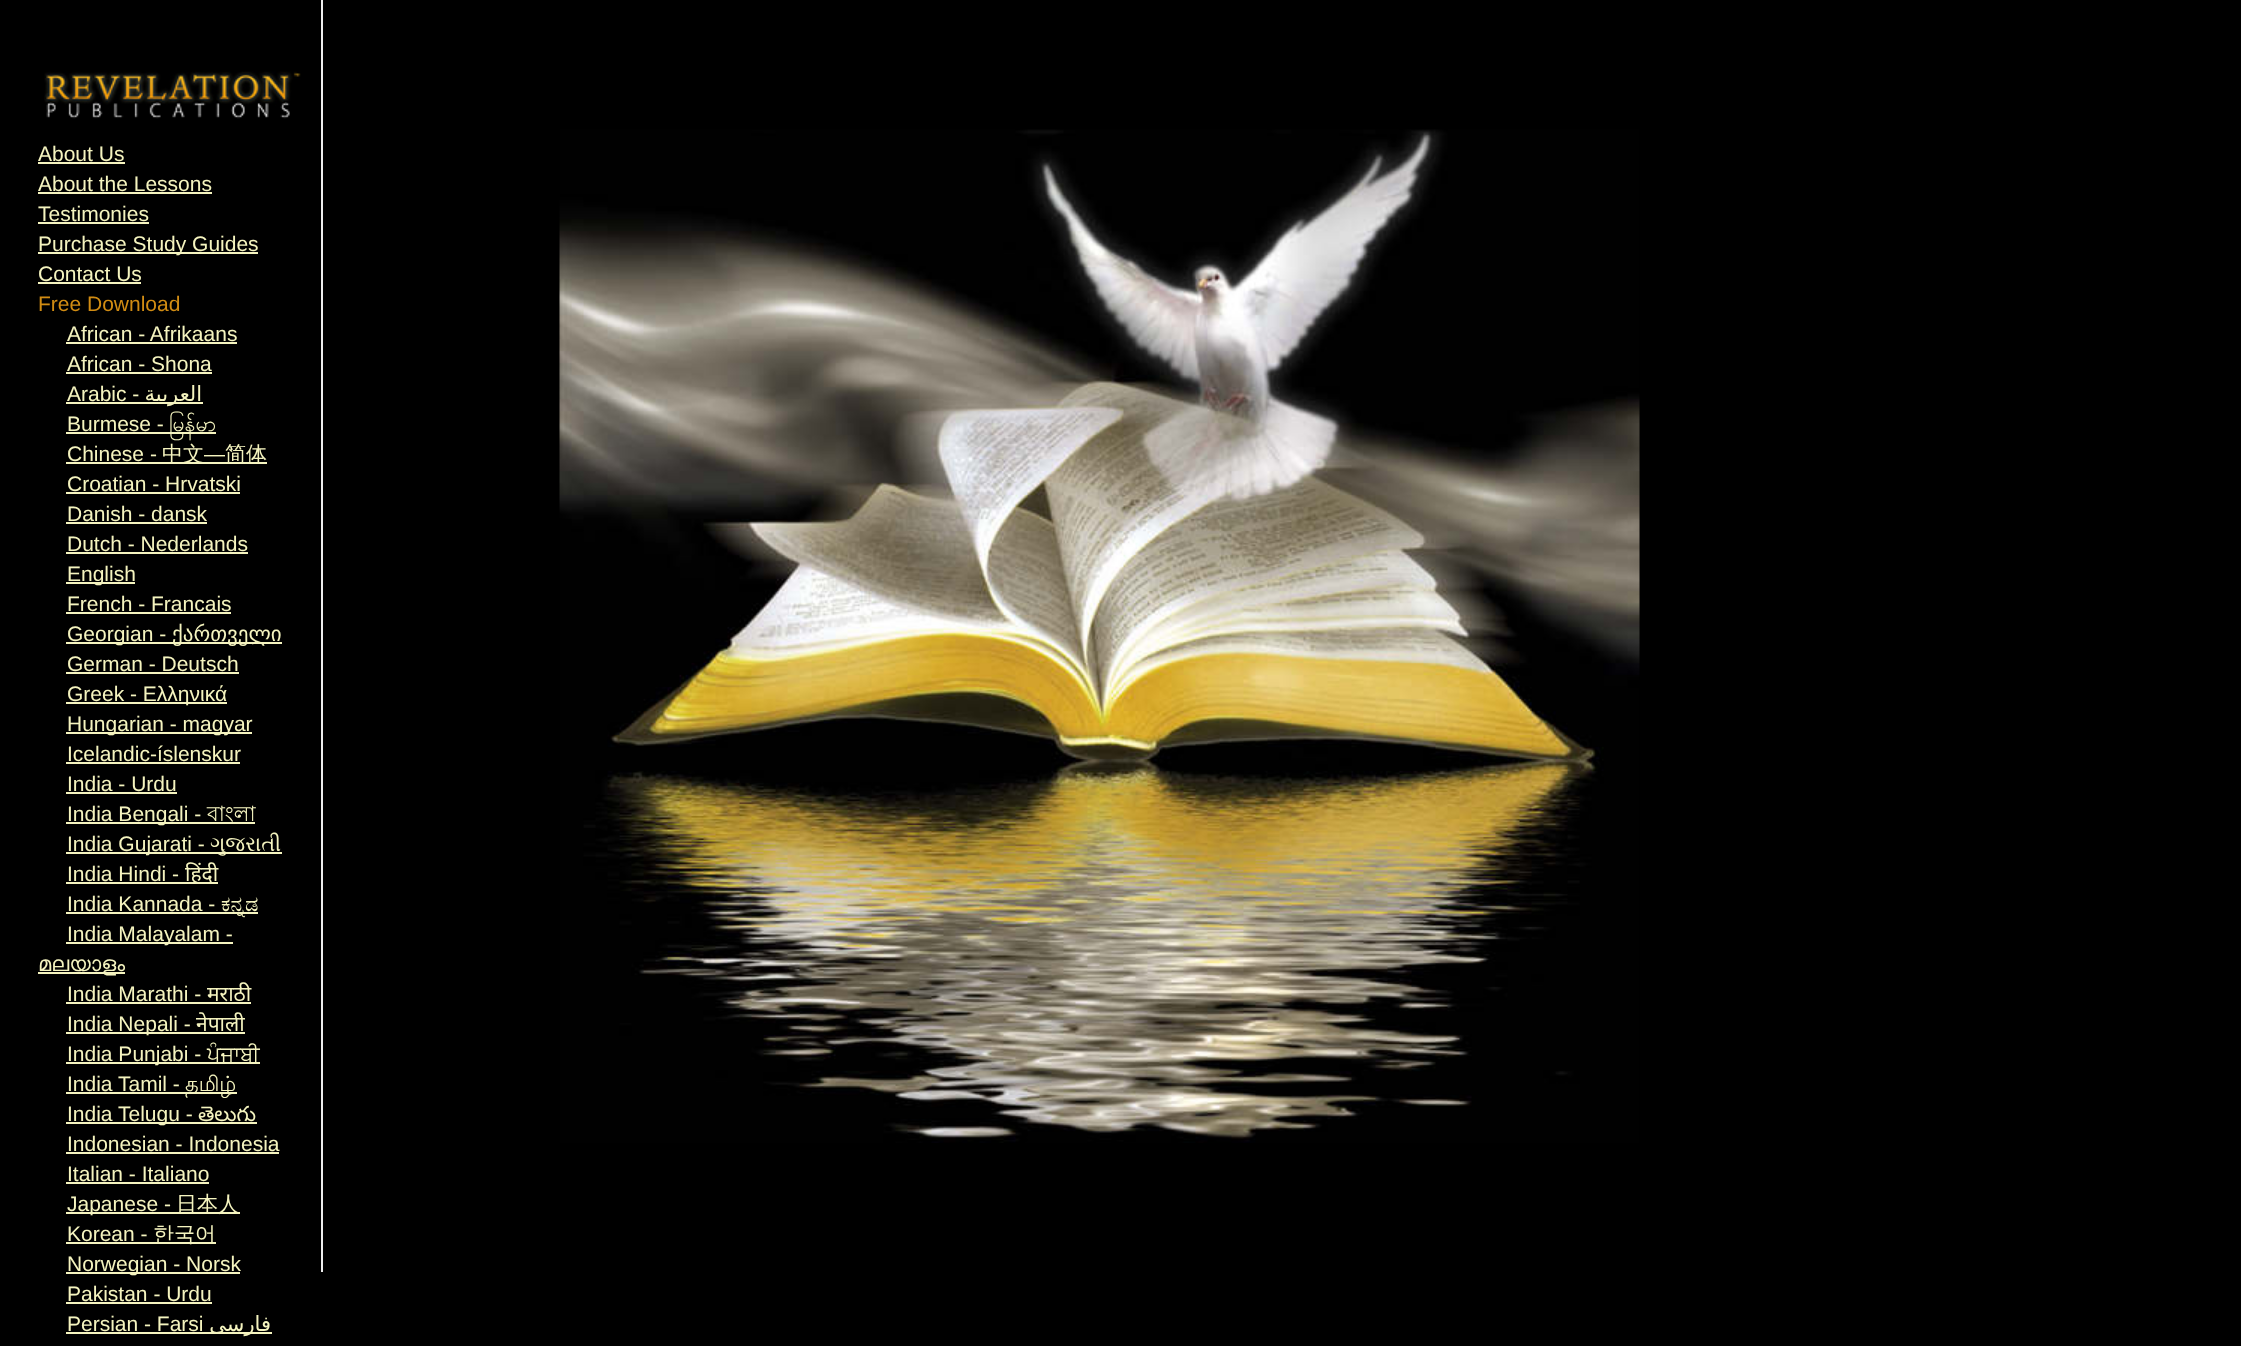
async function draw(canvas) {
  canvas.width = 2241;
  canvas.height = 1346;
  const ctx = canvas.getContext('2d');
  ctx.miterLimit = 4;
  ctx.fontKerning = 'normal';
  function label(s, x, y, font, color) {
    ctx.font = font;
    ctx.fillStyle = color;
    ctx.fillText(s, x, y);
  }
  function rect(x, y, w, h, color) {
    ctx.fillStyle = color;
    ctx.fillRect(x, y, w, h);
  }
  async function image(src, x, y, w, h) {
    const img = new Image();
    img.src = src;
    await img.decode();
    ctx.drawImage(img, x, y, w, h);
  }

  rect(0, 0, 2241, 1346, '#000');
  rect(321, 0, 2, 1272, '#eee');
  await image('assets/img1.png', 44, 71, 257, 48);
  label('About Us', 38, 161, '21px Liberation Sans', '#f5f4bf');
  rect(38, 162, 87, 2, '#f5f4bf');
  label('About the Lessons', 38, 191, '21px Liberation Sans', '#f5f4bf');
  rect(38, 192, 174, 2, '#f5f4bf');
  label('Testimonies', 38, 221, '21px Liberation Sans', '#f5f4bf');
  rect(38, 222, 111, 2, '#f5f4bf');
  rect(38, 252, 220, 2, '#f5f4bf');
  label('Purchase Study Guides', 38, 251, '21px Liberation Sans', '#f5f4bf');
  label('Contact Us', 38, 281, '21px Liberation Sans', '#f5f4bf');
  rect(38, 282, 103, 2, '#f5f4bf');
  label('Free Download', 38, 311, '21px Liberation Sans', '#d18c13');
  label('African - Afrikaans', 67, 341, '21px Liberation Sans', '#f5f4bf');
  rect(66, 342, 171, 2, '#f5f4bf');
  label('African - Shona', 67, 371, '21px Liberation Sans', '#f5f4bf');
  rect(66, 372, 146, 2, '#f5f4bf');
  label('Arabic -', 67, 401, '21px Liberation Sans', '#f5f4bf');
  rect(66, 402, 137, 2, '#f5f4bf');
  ctx.direction = 'rtl';
  label('العربية', 202, 401, '21px DejaVu Sans', '#f5f4bf');
  ctx.direction = 'ltr';
  label('Burmese -', 67, 431, '21px Liberation Sans', '#f5f4bf');
  rect(66, 432, 150, 2, '#f5f4bf');
  label('မြန်မာ', 169, 431, '21px Padauk', '#f5f4bf');
  label('Chinese -', 67, 461, '21px Liberation Sans', '#f5f4bf');
  rect(66, 462, 201, 2, '#f5f4bf');
  label('中文', 162, 461, '500 21px WenQuanYi Zen Hei', '#f5f4bf');
  label('—', 204, 461, '21px Liberation Sans', '#f5f4bf');
  label('简体', 225, 461, '500 21px WenQuanYi Zen Hei', '#f5f4bf');
  label('Croatian - Hrvatski', 67, 491, '21px Liberation Sans', '#f5f4bf');
  rect(66, 492, 174, 2, '#f5f4bf');
  label('Danish - dansk', 67, 521, '21px Liberation Sans', '#f5f4bf');
  rect(66, 522, 141, 2, '#f5f4bf');
  label('Dutch - Nederlands', 67, 551, '21px Liberation Sans', '#f5f4bf');
  rect(66, 552, 182, 2, '#f5f4bf');
  rect(66, 582, 69, 2, '#f5f4bf');
  label('English', 67, 581, '21px Liberation Sans', '#f5f4bf');
  label('French - Francais', 67, 611, '21px Liberation Sans', '#f5f4bf');
  rect(66, 612, 165, 2, '#f5f4bf');
  rect(66, 642, 216, 2, '#f5f4bf');
  label('Georgian -', 67, 641, '21px Liberation Sans', '#f5f4bf');
  label('ქართველი', 172, 641, '21px DejaVu Sans', '#f5f4bf');
  label('German - Deutsch', 67, 671, '21px Liberation Sans', '#f5f4bf');
  rect(66, 672, 173, 2, '#f5f4bf');
  rect(66, 702, 161, 2, '#f5f4bf');
  label('Greek - Ελληνικά', 67, 701, '21px Liberation Sans', '#f5f4bf');
  rect(66, 732, 186, 2, '#f5f4bf');
  label('Hungarian - magyar', 67, 731, '21px Liberation Sans', '#f5f4bf');
  label('Icelandic-íslenskur', 67, 761, '21px Liberation Sans', '#f5f4bf');
  rect(66, 762, 174, 2, '#f5f4bf');
  label('India - Urdu', 67, 791, '21px Liberation Sans', '#f5f4bf');
  rect(66, 792, 111, 2, '#f5f4bf');
  rect(66, 822, 189, 2, '#f5f4bf');
  label('India Bengali -', 67, 821, '21px Liberation Sans', '#f5f4bf');
  label('বাংলা', 207, 821, '21px Lohit Bengali', '#f5f4bf');
  rect(66, 852, 216, 2, '#f5f4bf');
  label('India Gujarati -', 67, 851, '21px Liberation Sans', '#f5f4bf');
  label('ગુજરાતી', 210, 851, '21px FreeSerif', '#f5f4bf');
  label('India Hindi -', 67, 881, '21px Liberation Sans', '#f5f4bf');
  rect(66, 882, 152, 2, '#f5f4bf');
  label('हिंदी', 185, 881, '21px Noto Sans', '#f5f4bf');
  label('India Kannada -', 67, 911, '21px Liberation Sans', '#f5f4bf');
  rect(66, 912, 192, 2, '#f5f4bf');
  label('ಕನ್ನಡ', 221, 911, '21px FreeSerif', '#f5f4bf');
  rect(66, 942, 167, 2, '#f5f4bf');
  label('India Malayalam -', 67, 941, '21px Liberation Sans', '#f5f4bf');
  rect(38, 972, 87, 2, '#f5f4bf');
  label('മലയാളം', 38, 971, '21px FreeSans', '#f5f4bf');
  label('India Marathi -', 67, 1001, '21px Liberation Sans', '#f5f4bf');
  rect(66, 1002, 185, 2, '#f5f4bf');
  label('मराठी', 207, 1001, '21px Noto Sans', '#f5f4bf');
  rect(66, 1032, 179, 2, '#f5f4bf');
  label('India Nepali -', 67, 1031, '21px Liberation Sans', '#f5f4bf');
  label('नेपाली', 196, 1031, '21px Noto Sans', '#f5f4bf');
  rect(66, 1062, 194, 2, '#f5f4bf');
  label('India Punjabi -', 67, 1061, '21px Liberation Sans', '#f5f4bf');
  label('ਪੰਜਾਬੀ', 207, 1061, '21px FreeSans', '#f5f4bf');
  label('India Tamil -', 67, 1091, '21px Liberation Sans', '#f5f4bf');
  rect(66, 1092, 171, 2, '#f5f4bf');
  label('தமிழ்', 185, 1091, '21px Lohit Tamil', '#f5f4bf');
  rect(66, 1122, 191, 2, '#f5f4bf');
  label('India Telugu -', 67, 1121, '21px Liberation Sans', '#f5f4bf');
  label('తెలుగు', 198, 1121, '21px Noto Sans Telugu', '#f5f4bf');
  label('Indonesian - Indonesia', 67, 1151, '21px Liberation Sans', '#f5f4bf');
  rect(66, 1152, 213, 2, '#f5f4bf');
  label('Italian - Italiano', 67, 1181, '21px Liberation Sans', '#f5f4bf');
  rect(66, 1182, 143, 2, '#f5f4bf');
  rect(66, 1212, 174, 2, '#f5f4bf');
  label('Japanese -', 67, 1211, '21px Liberation Sans', '#f5f4bf');
  label('日本人', 176, 1211, '500 21px WenQuanYi Zen Hei', '#f5f4bf');
  label('Korean -', 67, 1241, '21px Liberation Sans', '#f5f4bf');
  rect(66, 1242, 150, 2, '#f5f4bf');
  label('한국어', 153, 1241, '500 21px WenQuanYi Zen Hei', '#f5f4bf');
  rect(66, 1272, 174, 2, '#f5f4bf');
  label('Norwegian - Norsk', 67, 1271, '21px Liberation Sans', '#f5f4bf');
  label('Pakistan - Urdu', 67, 1301, '21px Liberation Sans', '#f5f4bf');
  rect(66, 1302, 146, 2, '#f5f4bf');
  label('Persian - Farsi', 67, 1331, '21px Liberation Sans', '#f5f4bf');
  rect(66, 1332, 206, 2, '#f5f4bf');
  ctx.direction = 'rtl';
  label('فارسی', 271, 1331, '21px DejaVu Sans', '#f5f4bf');
  await image('assets/img2.png', 559, 129, 1081, 1014);
}

draw(document.querySelector('canvas'));
